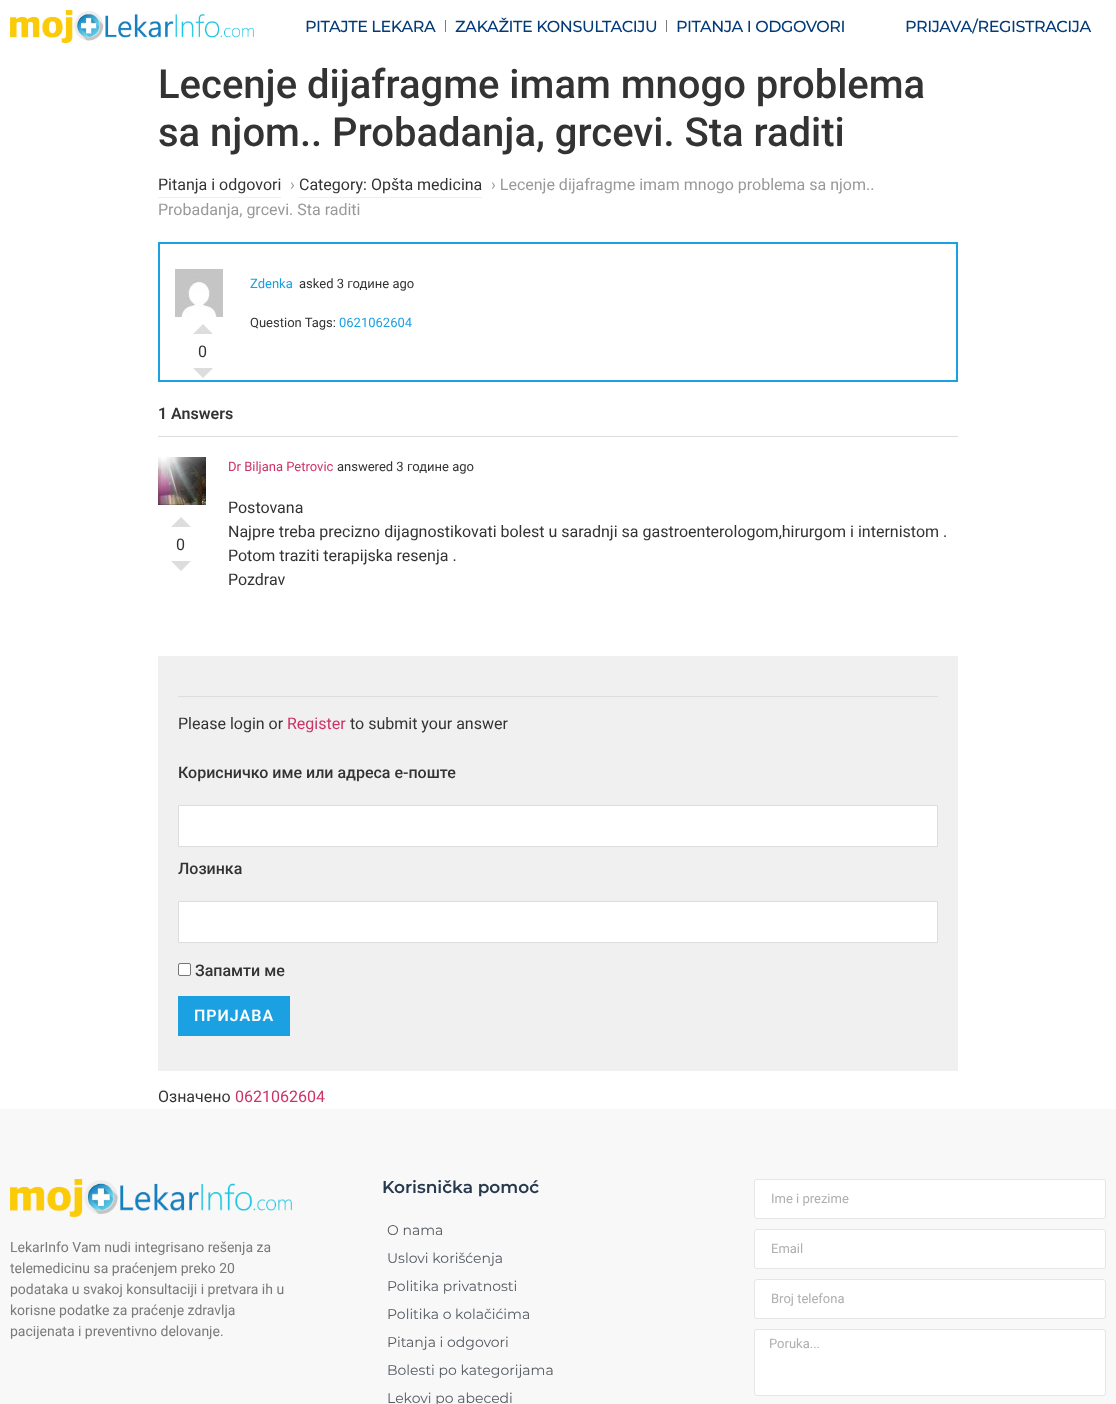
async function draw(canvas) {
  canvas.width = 1116;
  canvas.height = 1404;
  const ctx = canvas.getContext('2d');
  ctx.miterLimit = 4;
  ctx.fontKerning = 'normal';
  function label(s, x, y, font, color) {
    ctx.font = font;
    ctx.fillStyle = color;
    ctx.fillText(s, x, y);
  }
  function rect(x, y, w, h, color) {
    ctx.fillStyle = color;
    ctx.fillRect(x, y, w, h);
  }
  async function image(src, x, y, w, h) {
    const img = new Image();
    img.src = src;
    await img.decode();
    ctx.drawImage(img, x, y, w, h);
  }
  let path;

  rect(0, 0, 1116, 1404, '#fff');
  await image('assets/img1.png', 10, 10, 244, 33);
  ctx.letterSpacing = '-0.4px';
  label('PITAJTE LEKARA', 305, 32, '500 16px Montserrat', '#033b78');
  rect(445, 20, 1, 12, '#7a7a7a');
  label('ZAKAŽITE KONSULTACIJU', 455, 32, '500 16px Montserrat', '#033b78');
  rect(666, 20, 1, 12, '#7a7a7a');
  label('PITANJA I ODGOVORI', 676, 32, '500 16px Montserrat', '#033b78');
  label('PRIJAVA/REGISTRACIJA', 905, 32, '500 16px Montserrat', '#033b78');
  ctx.letterSpacing = '0px';
  label('Lecenje dijafragme imam mnogo problema', 158, 98, '500 40px Roboto', '#333');
  label('sa njom.. Probadanja, grcevi. Sta raditi', 158, 146, '500 40px Roboto', '#333');
  rect(158, 197, 123, 1, '#eee');
  label('Pitanja i odgovori', 158, 190, '16px Roboto', '#333');
  label('›', 290, 190, '16px Roboto', '#999');
  rect(299, 197, 183, 1, '#eee');
  label('Category: Opšta medicina', 299, 190, '16px Roboto', '#333');
  label('› Lecenje dijafragme imam mnogo problema sa njom..', 491, 190, '16px Roboto', '#999');
  label('Probadanja, grcevi. Sta raditi', 158, 215, '16px Roboto', '#999');
  ctx.strokeStyle = '#1ba1e2';
  ctx.lineWidth = 2;
  ctx.strokeRect(159, 243, 798, 138);
  await image('assets/img2.png', 175, 269, 48, 48);
  label('Zdenka', 250, 288, '13px Roboto', '#1ba1e2');
  label('asked 3 године ago', 299, 288, '13px Roboto', '#333');
  label('Question Tags:', 250, 327, '13px Roboto', '#333');
  label('0621062604', 339, 327, '13px Roboto', '#1ba1e2');
  label('0', 198, 357, '16px Roboto', '#333');
  ctx.fillStyle = '#ddd';
  path = new Path2D('M213 334H193L203 324ZM193 368H213L203 378Z');
  ctx.fill(path);
  label('1 Answers', 158, 419, '600 16px Roboto', '#333');
  rect(158, 436, 800, 1, '#ddd');
  await image('assets/img3.png', 158, 457, 48, 48);
  label('Dr Biljana Petrovic', 228, 471, '13px Roboto', '#c36');
  label('answered 3 године ago', 337, 471, '13px Roboto', '#333');
  label('0', 176, 550, '16px Roboto', '#333');
  ctx.fillStyle = '#ddd';
  path = new Path2D('M191 527H171L181 517ZM171 561H191L181 571Z');
  ctx.fill(path);
  label('Postovana', 228, 513, '16px Roboto', '#333');
  label('Najpre treba precizno dijagnostikovati bolest u saradnji sa gastroenterologom,hirurgom i internistom .', 228, 537, '16px Roboto', '#333');
  label('Potom traziti terapijska resenja .', 228, 561, '16px Roboto', '#333');
  label('Pozdrav', 228, 585, '16px Roboto', '#333');
  rect(158, 656, 800, 415, '#f0f0f0');
  rect(178, 696, 760, 1, '#ddd');
  label('Please login or', 178, 729, '16px Roboto', '#333');
  label('Register', 287, 729, '16px Roboto', '#c36');
  label('to submit your answer', 350, 729, '16px Roboto', '#333');
  label('Корисничко име или адреса е-поште', 178, 778, '500 16px Roboto', '#333');
  ctx.fillStyle = '#fff';
  ctx.beginPath();
  ctx.rect(178.5, 805.5, 759, 41);
  ctx.fill();
  ctx.strokeStyle = '#ddd';
  ctx.lineWidth = 1;
  ctx.stroke();
  label('Лозинка', 178, 874, '500 16px Roboto', '#333');
  ctx.fillStyle = '#fff';
  ctx.beginPath();
  ctx.rect(178.5, 901.5, 759, 41);
  ctx.fill();
  ctx.stroke();
  ctx.beginPath();
  ctx.roundRect(178.5, 963.5, 12, 12, 1.5);
  ctx.fill();
  ctx.strokeStyle = '#767676';
  ctx.stroke();
  label('Запамти ме', 195, 976, '500 16px Roboto', '#333');
  rect(178, 996, 112, 40, '#1ba1e2');
  ctx.letterSpacing = '1px';
  label('ПРИЈАВА', 194, 1021, '600 16px Roboto', '#fff');
  ctx.letterSpacing = '0px';
  label('Означено', 158, 1102, '16px Roboto', '#333');
  label('0621062604', 235, 1102, '16px Roboto', '#c36');
  rect(0, 1109, 1116, 295, '#f8f8f8');
  await image('assets/img4.png', 10, 1179, 282, 38);
  label('LekarInfo Vam nudi integrisano rešenja za', 10, 1252, '14px Roboto', '#7a7a7a');
  label('telemedicinu sa praćenjem preko 20', 10, 1273, '14px Roboto', '#7a7a7a');
  label('podataka u svakoj konsultaciji i pretvara ih u', 10, 1294, '14px Roboto', '#7a7a7a');
  label('korisne podatke za praćenje zdravlja', 10, 1315, '14px Roboto', '#7a7a7a');
  label('pacijenata i preventivno delovanje.', 10, 1336, '14px Roboto', '#7a7a7a');
  label('Korisnička pomoć', 382, 1193, '600 17px Montserrat', '#26394d');
  label('O nama', 387, 1235, '14px Montserrat', '#54595f');
  label('Uslovi korišćenja', 387, 1263, '14px Montserrat', '#54595f');
  label('Politika privatnosti', 387, 1291, '14px Montserrat', '#54595f');
  label('Politika o kolačićima', 387, 1319, '14px Montserrat', '#54595f');
  label('Pitanja i odgovori', 387, 1347, '14px Montserrat', '#54595f');
  label('Bolesti po kategorijama', 387, 1375, '14px Montserrat', '#54595f');
  label('Lekovi po abecedi', 387, 1403, '14px Montserrat', '#54595f');
  ctx.fillStyle = '#fff';
  ctx.beginPath();
  ctx.roundRect(754.5, 1179.5, 351, 39, 2.5);
  ctx.fill();
  ctx.strokeStyle = '#e6e6e6';
  ctx.stroke();
  label('Ime i prezime', 771, 1203, '13px Roboto', '#afafaf');
  ctx.fillStyle = '#fff';
  ctx.beginPath();
  ctx.roundRect(754.5, 1229.5, 351, 39, 2.5);
  ctx.fill();
  ctx.stroke();
  label('Email', 771, 1253, '13px Roboto', '#afafaf');
  ctx.fillStyle = '#fff';
  ctx.beginPath();
  ctx.roundRect(754.5, 1279.5, 351, 39, 2.5);
  ctx.fill();
  ctx.stroke();
  label('Broj telefona', 771, 1303, '13px Roboto', '#afafaf');
  ctx.fillStyle = '#fff';
  ctx.beginPath();
  ctx.roundRect(754.5, 1329.5, 351, 66, 2.5);
  ctx.fill();
  ctx.stroke();
  label('Poruka...', 769, 1348, '13px Roboto', '#afafaf');
}

draw(document.querySelector('canvas'));
